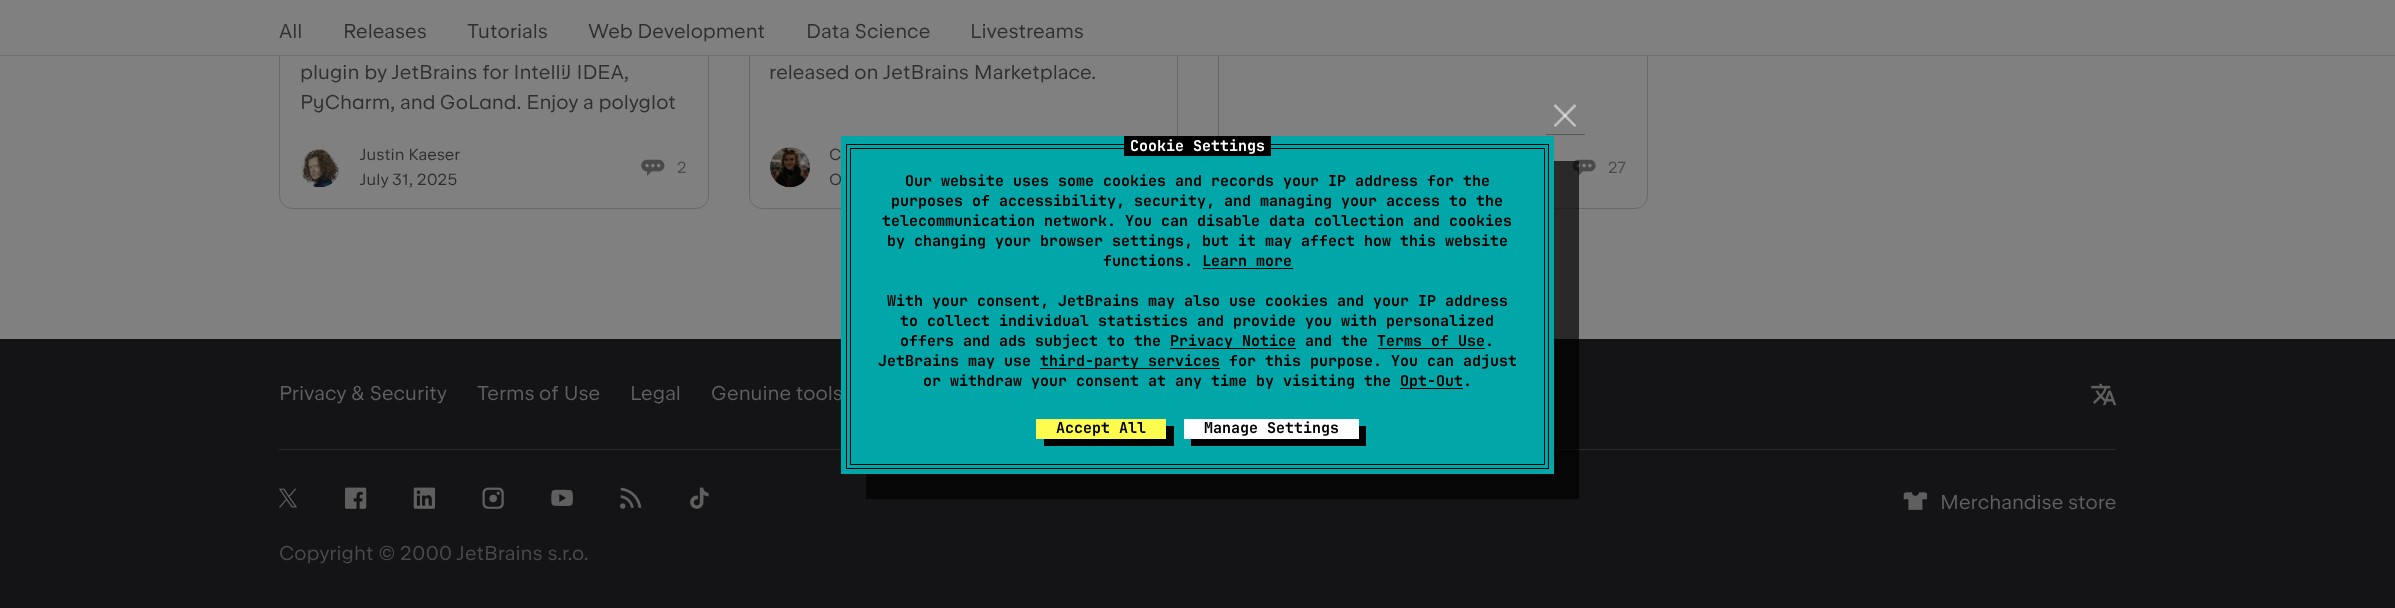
async function draw(canvas) {
  canvas.width = 2395;
  canvas.height = 608;
  const ctx = canvas.getContext('2d');
  ctx.miterLimit = 4;
  ctx.fontKerning = 'normal';
  function label(s, x, y, font, color) {
    ctx.font = font;
    ctx.fillStyle = color;
    ctx.fillText(s, x, y);
  }
  function rect(x, y, w, h, color) {
    ctx.fillStyle = color;
    ctx.fillRect(x, y, w, h);
  }
  async function image(src, x, y, w, h) {
    const img = new Image();
    img.src = src;
    await img.decode();
    ctx.drawImage(img, x, y, w, h);
  }
  let path;

  rect(0, 0, 2395, 608, '#808080');
  ctx.beginPath();
  ctx.roundRect(279.5, -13.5, 429, 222, 12.5);
  ctx.strokeStyle = '#696969';
  ctx.stroke();
  ctx.beginPath();
  ctx.roundRect(749.5, -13.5, 428, 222, 12.5);
  ctx.stroke();
  ctx.beginPath();
  ctx.roundRect(1218.5, -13.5, 429, 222, 12.5);
  ctx.stroke();
  rect(279, 0, 1369, 55, '#808080');
  label('All', 279, 38, '20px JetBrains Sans', '#2f2f30');
  label('Releases', 343, 38, '20px JetBrains Sans', '#2f2f30');
  label('Tutorials', 467, 38, '20px JetBrains Sans', '#2f2f30');
  label('Web Development', 588, 38, '20px JetBrains Sans', '#2f2f30');
  label('Data Science', 806, 38, '20px JetBrains Sans', '#2f2f30');
  label('Livestreams', 970, 38, '20px JetBrains Sans', '#2f2f30');
  rect(0, 55, 2395, 1, '#707070');
  label('plugin by JetBrains for IntelliJ IDEA,', 300, 79, '20px JetBrains Sans', '#2f2f30');
  label('PyCharm, and GoLand. Enjoy a polyglot', 300, 109, '20px JetBrains Sans', '#2f2f30');
  await image('assets/img1.png', 301, 148, 38, 40);
  label('Justin Kaeser', 360, 160, '16.25px JetBrains Sans', '#2f2f30');
  label('July 31, 2025', 360, 185, '16.25px JetBrains Sans', '#2f2f30');
  await image('assets/img2.png', 641, 159, 24, 17);
  label('2', 677, 173, '16.25px JetBrains Sans', '#4a4a4b');
  label('released on JetBrains Marketplace.', 769, 79, '20px JetBrains Sans', '#2f2f30');
  await image('assets/img3.png', 770, 147, 40, 41);
  label('C', 829, 160, '16.25px JetBrains Sans', '#2f2f30');
  label('O', 829, 185, '16.25px JetBrains Sans', '#2f2f30');
  await image('assets/img4.png', 1572, 159, 24, 17);
  label('27', 1608, 173, '16.25px JetBrains Sans', '#4a4a4b');
  rect(0, 339, 2395, 269, '#141416');
  rect(279, 449, 1837, 1, '#292a2b');
  label('Privacy & Security', 279, 400, '20px JetBrains Sans', '#5f6060');
  label('Terms of Use', 477, 400, '20px JetBrains Sans', '#5f6060');
  label('Legal', 630, 400, '20px JetBrains Sans', '#5f6060');
  label('Genuine tools', 711, 400, '20px JetBrains Sans', '#5f6060');
  await image('assets/img5.png', 2091, 383, 26, 23);
  await image('assets/img6.png', 278, 488, 19, 20);
  await image('assets/img7.png', 345, 487, 22, 22);
  await image('assets/img8.png', 413, 487, 22, 22);
  await image('assets/img9.png', 482, 487, 22, 22);
  await image('assets/img10.png', 551, 489, 22, 17);
  await image('assets/img11.png', 620, 487, 22, 22);
  await image('assets/img12.png', 690, 487, 19, 22);
  await image('assets/img13.png', 1903, 492, 25, 18);
  label('Merchandise store', 1940, 509, '20px JetBrains Sans', '#5f6060');
  label('Copyright © 2000 JetBrains s.r.o.', 279, 560, '20px JetBrains Sans', '#4a4a4b');
  ctx.fillStyle = '#000000ad';
  path = new Path2D('M866 474V499H1579V161H1554V474Z');
  ctx.fill(path);
  rect(841, 136, 713, 338, '#01a7a8');
  rect(1546, 134, 39, 1, '#575758');
  ctx.fillStyle = '#bfbfbf';
  path = new Path2D('M1553.5 125.5L1574.5 104L1576.5 106L1555.5 127Z');
  ctx.fill(path);
  ctx.fillStyle = '#ffffff80';
  path = new Path2D('M1555.5 104L1576.5 125.5L1574.5 127L1553.5 106Z');
  ctx.fill(path);
  rect(850, 148, 695, 1, '#000');
  rect(1544, 148, 1, 317, '#000');
  rect(850, 148, 1, 271, '#000');
  rect(846, 144, 703, 1, '#000');
  rect(1124, 136, 147, 20, '#000');
  label('Cookie Settings', 1130, 151, 'bold 15px JetBrains Mono', '#fff');
  rect(1548, 144, 1, 325, '#000');
  rect(846, 144, 1, 274, '#000');
  label('Our website uses some cookies and records your IP address for the', 905, 186, 'bold 15px JetBrains Mono', '#000');
  label('purposes of accessibility, security, and managing your access to the', 891, 206, 'bold 15px JetBrains Mono', '#000');
  label('telecommunication network. You can disable data collection and cookies', 882, 226, 'bold 15px JetBrains Mono', '#000');
  label('by changing your browser settings, but it may affect how this website', 887, 246, 'bold 15px JetBrains Mono', '#000');
  label('functions. Learn more', 1103, 266, 'bold 15px JetBrains Mono', '#000');
  rect(1203, 268, 90, 1, '#000');
  label('With your consent, JetBrains may also use cookies and your IP address', 887, 306, 'bold 15px JetBrains Mono', '#000');
  label('to collect individual statistics and provide you with personalized', 900, 326, 'bold 15px JetBrains Mono', '#000');
  label('offers and ads subject to the', 900, 346, 'bold 15px JetBrains Mono', '#000');
  rect(1170, 348, 126, 1, '#000');
  label('Privacy Notice and the Terms of Use.', 1170, 346, 'bold 15px JetBrains Mono', '#000');
  rect(1378, 348, 107, 1, '#000');
  label('JetBrains may use', 878, 366, 'bold 15px JetBrains Mono', '#000');
  rect(1040, 368, 180, 1, '#000');
  label('third-party services for this purpose. You can adjust', 1040, 366, 'bold 15px JetBrains Mono', '#000');
  label('or withdraw your consent at any time by visiting the', 923, 386, 'bold 15px JetBrains Mono', '#000');
  rect(1400, 388, 63, 1, '#000');
  label('Opt-Out.', 1400, 386, 'bold 15px JetBrains Mono', '#000');
  rect(850, 464, 695, 1, '#000');
  rect(850, 419, 1, 46, '#000');
  rect(846, 468, 703, 1, '#000');
  rect(846, 418, 1, 51, '#000');
  path = new Path2D('M1044 439V446H1174V426H1166V439Z');
  ctx.fill(path);
  rect(1036, 419, 130, 20, '#fefc4f');
  label('Accept All', 1056, 433, 'bold 15px JetBrains Mono', '#000');
  path = new Path2D('M1191 439V446H1366V426H1359V439Z');
  ctx.fill(path);
  rect(1184, 419, 175, 20, '#fff');
  label('Manage Settings', 1204, 433, 'bold 15px JetBrains Mono', '#000');
}

draw(document.querySelector('canvas'));
